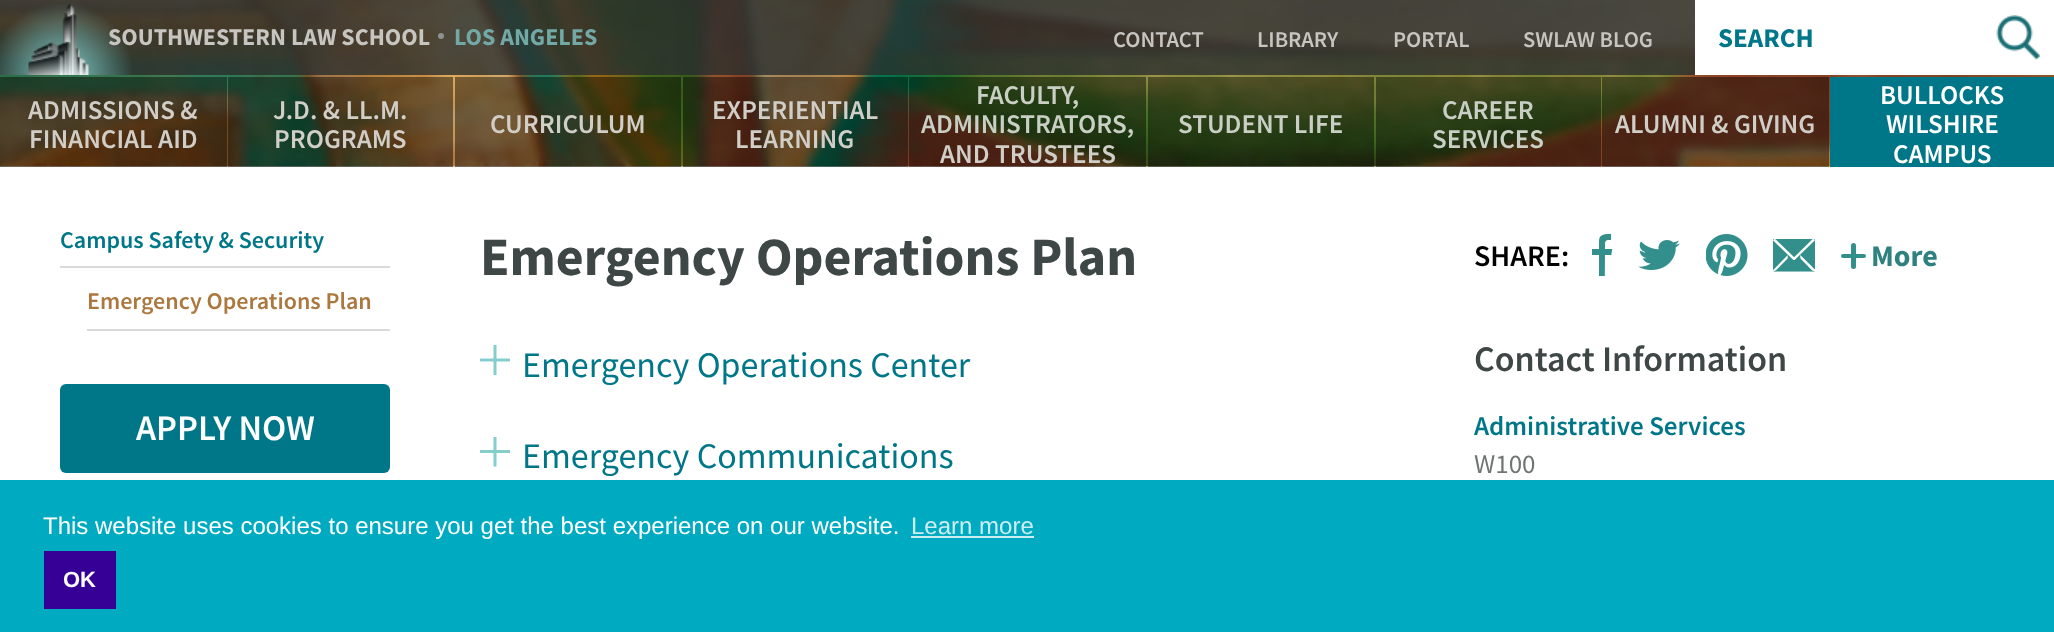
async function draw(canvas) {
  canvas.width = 2054;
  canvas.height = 632;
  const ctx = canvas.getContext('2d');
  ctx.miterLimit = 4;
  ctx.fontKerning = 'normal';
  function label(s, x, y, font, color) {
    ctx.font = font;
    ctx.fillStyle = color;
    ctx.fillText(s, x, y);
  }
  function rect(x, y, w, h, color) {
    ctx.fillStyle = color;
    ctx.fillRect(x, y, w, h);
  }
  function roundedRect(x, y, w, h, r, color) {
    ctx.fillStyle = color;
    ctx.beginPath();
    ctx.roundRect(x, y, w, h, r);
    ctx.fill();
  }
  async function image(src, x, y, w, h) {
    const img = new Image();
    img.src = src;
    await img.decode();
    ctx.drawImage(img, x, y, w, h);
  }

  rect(0, 0, 2054, 632, '#fff');
  await image('assets/img1.png', 0, 0, 2054, 167);
  rect(0, 0, 1071, 75, '#292d2dcc');
  await image('assets/img2.png', 0, 4, 132, 71);
  label('SOUTHWESTERN', 108, 45, 'bold 24px Source Sans Pro', '#c7c5c0');
  label('LAW SCHOOL', 291, 45, 'bold 24px Source Sans Pro', '#c7c5c0');
  ctx.fillStyle = '#8d9191';
  ctx.beginPath();
  ctx.arc(441, 36, 3, 0, 2 * Math.PI);
  ctx.fill();
  label('LOS ANGELES', 454, 45, 'bold 24px Source Sans Pro', '#72a8a5');
  rect(1071, 0, 624, 75, '#292d2dcc');
  label('CONTACT', 1113, 47, '600 22.5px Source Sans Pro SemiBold', '#c7c5c0');
  label('LIBRARY', 1257, 47, '600 22.5px Source Sans Pro SemiBold', '#c7c5c0');
  label('PORTAL', 1393, 47, '600 22.5px Source Sans Pro SemiBold', '#c7c5c0');
  label('SWLAW BLOG', 1523, 47, '600 22.5px Source Sans Pro SemiBold', '#c7c5c0');
  rect(1695, 0, 359, 75, '#fff');
  label('SEARCH', 1718, 47, 'bold 27px Source Sans Pro', '#078');
  await image('assets/img3.png', 1996, 15, 44, 45);
  rect(0, 77, 227, 90, '#00000073');
  label('ADMISSIONS &', 28, 119, '600 27px Source Sans Pro SemiBold', '#d1cec8');
  label('FINANCIAL AID', 29, 148, '600 27px Source Sans Pro SemiBold', '#d1cec8');
  rect(228, 77, 225, 90, '#00000073');
  label('J.D. & LL.M.', 273, 119, '600 27px Source Sans Pro SemiBold', '#d1cec8');
  label('PROGRAMS', 274, 148, '600 27px Source Sans Pro SemiBold', '#d1cec8');
  rect(455, 77, 226, 90, '#00000073');
  label('CURRICULUM', 490, 133, '600 27px Source Sans Pro SemiBold', '#d1cec8');
  rect(683, 77, 225, 90, '#00000073');
  label('EXPERIENTIAL', 712, 119, '600 27px Source Sans Pro SemiBold', '#d1cec8');
  label('LEARNING', 735, 148, '600 27px Source Sans Pro SemiBold', '#d1cec8');
  rect(909, 77, 237, 90, '#00000073');
  label('FACULTY,', 976, 104, '600 27px Source Sans Pro SemiBold', '#c9cfc4');
  label('ADMINISTRATORS,', 921, 133, '600 27px Source Sans Pro SemiBold', '#c9cfc4');
  label('AND TRUSTEES', 940, 163, '600 27px Source Sans Pro SemiBold', '#d1cec8');
  rect(1148, 77, 226, 90, '#00000073');
  label('STUDENT LIFE', 1178, 133, '600 27px Source Sans Pro SemiBold', '#c9cfc4');
  rect(1376, 77, 225, 90, '#00000073');
  label('CAREER', 1442, 119, '600 27px Source Sans Pro SemiBold', '#c9cfc4');
  label('SERVICES', 1432, 148, '600 27px Source Sans Pro SemiBold', '#c9cfc4');
  rect(1602, 77, 227, 90, '#00000073');
  label('ALUMNI & GIVING', 1615, 133, '600 27px Source Sans Pro SemiBold', '#d1cec8');
  rect(1830, 77, 224, 90, '#078');
  label('BULLOCKS', 1880, 104, '600 27px Source Sans Pro SemiBold', '#fff');
  label('WILSHIRE', 1886, 133, '600 27px Source Sans Pro SemiBold', '#fff');
  label('CAMPUS', 1893, 163, '600 27px Source Sans Pro SemiBold', '#fff');
  rect(60, 266, 330, 2, '#d9dada');
  label('Campus Safety & Security', 60, 248, '600 24px Source Sans Pro SemiBold', '#078');
  rect(87, 329, 303, 2, '#d9dada');
  label('Emergency Operations Plan', 87, 309, '600 24px Source Sans Pro SemiBold', '#ab783f');
  roundedRect(60, 384, 330, 89, 6, '#078');
  label('APPLY NOW', 136, 440, '600 36px Source Sans Pro SemiBold', '#fff');
  label('Emergency Operations Plan', 480, 275, 'bold 54px Source Sans Pro', '#3f4646');
  label('SHARE:', 1474, 266, '600 30px Source Sans Pro SemiBold', '#000');
  await image('assets/img4.png', 1592, 234, 21, 42);
  await image('assets/img5.png', 1638, 240, 42, 30);
  await image('assets/img6.png', 1706, 234, 42, 42);
  await image('assets/img7.png', 1773, 239, 42, 33);
  roundedRect(1841, 254, 25, 4, 2, '#338f8b');
  roundedRect(1851, 243, 5, 26, 2.5, '#338f8b');
  label('More', 1871, 266, 'bold 30px Source Sans Pro', '#2e817e');
  await image('assets/img8.png', 480, 345, 30, 30);
  label('Emergency Operations Center', 522, 377, '36px Source Sans Pro', '#078');
  await image('assets/img9.png', 480, 437, 30, 30);
  label('Emergency Communications', 522, 468, '36px Source Sans Pro', '#078');
  label('Contact Information', 1474, 371, '600 36px Source Sans Pro SemiBold', '#3f4646');
  label('Administrative Services', 1474, 435, '600 27px Source Sans Pro SemiBold', '#078');
  label('W100', 1474, 473, '27px Source Sans Pro', '#717474');
  rect(0, 480, 2054, 152, '#00abc2');
  label('This website uses cookies to ensure you get the best experience on our website.', 43, 534, '24px Liberation Sans', '#fff');
  label('Learn more', 911, 534, '24px Liberation Sans', '#cceef3');
  rect(911, 536, 123, 2, '#cceef3');
  rect(44, 551, 72, 58, '#360096');
  label('OK', 63, 587, 'bold 22px Liberation Sans', '#fff');
}

draw(document.querySelector('canvas'));
